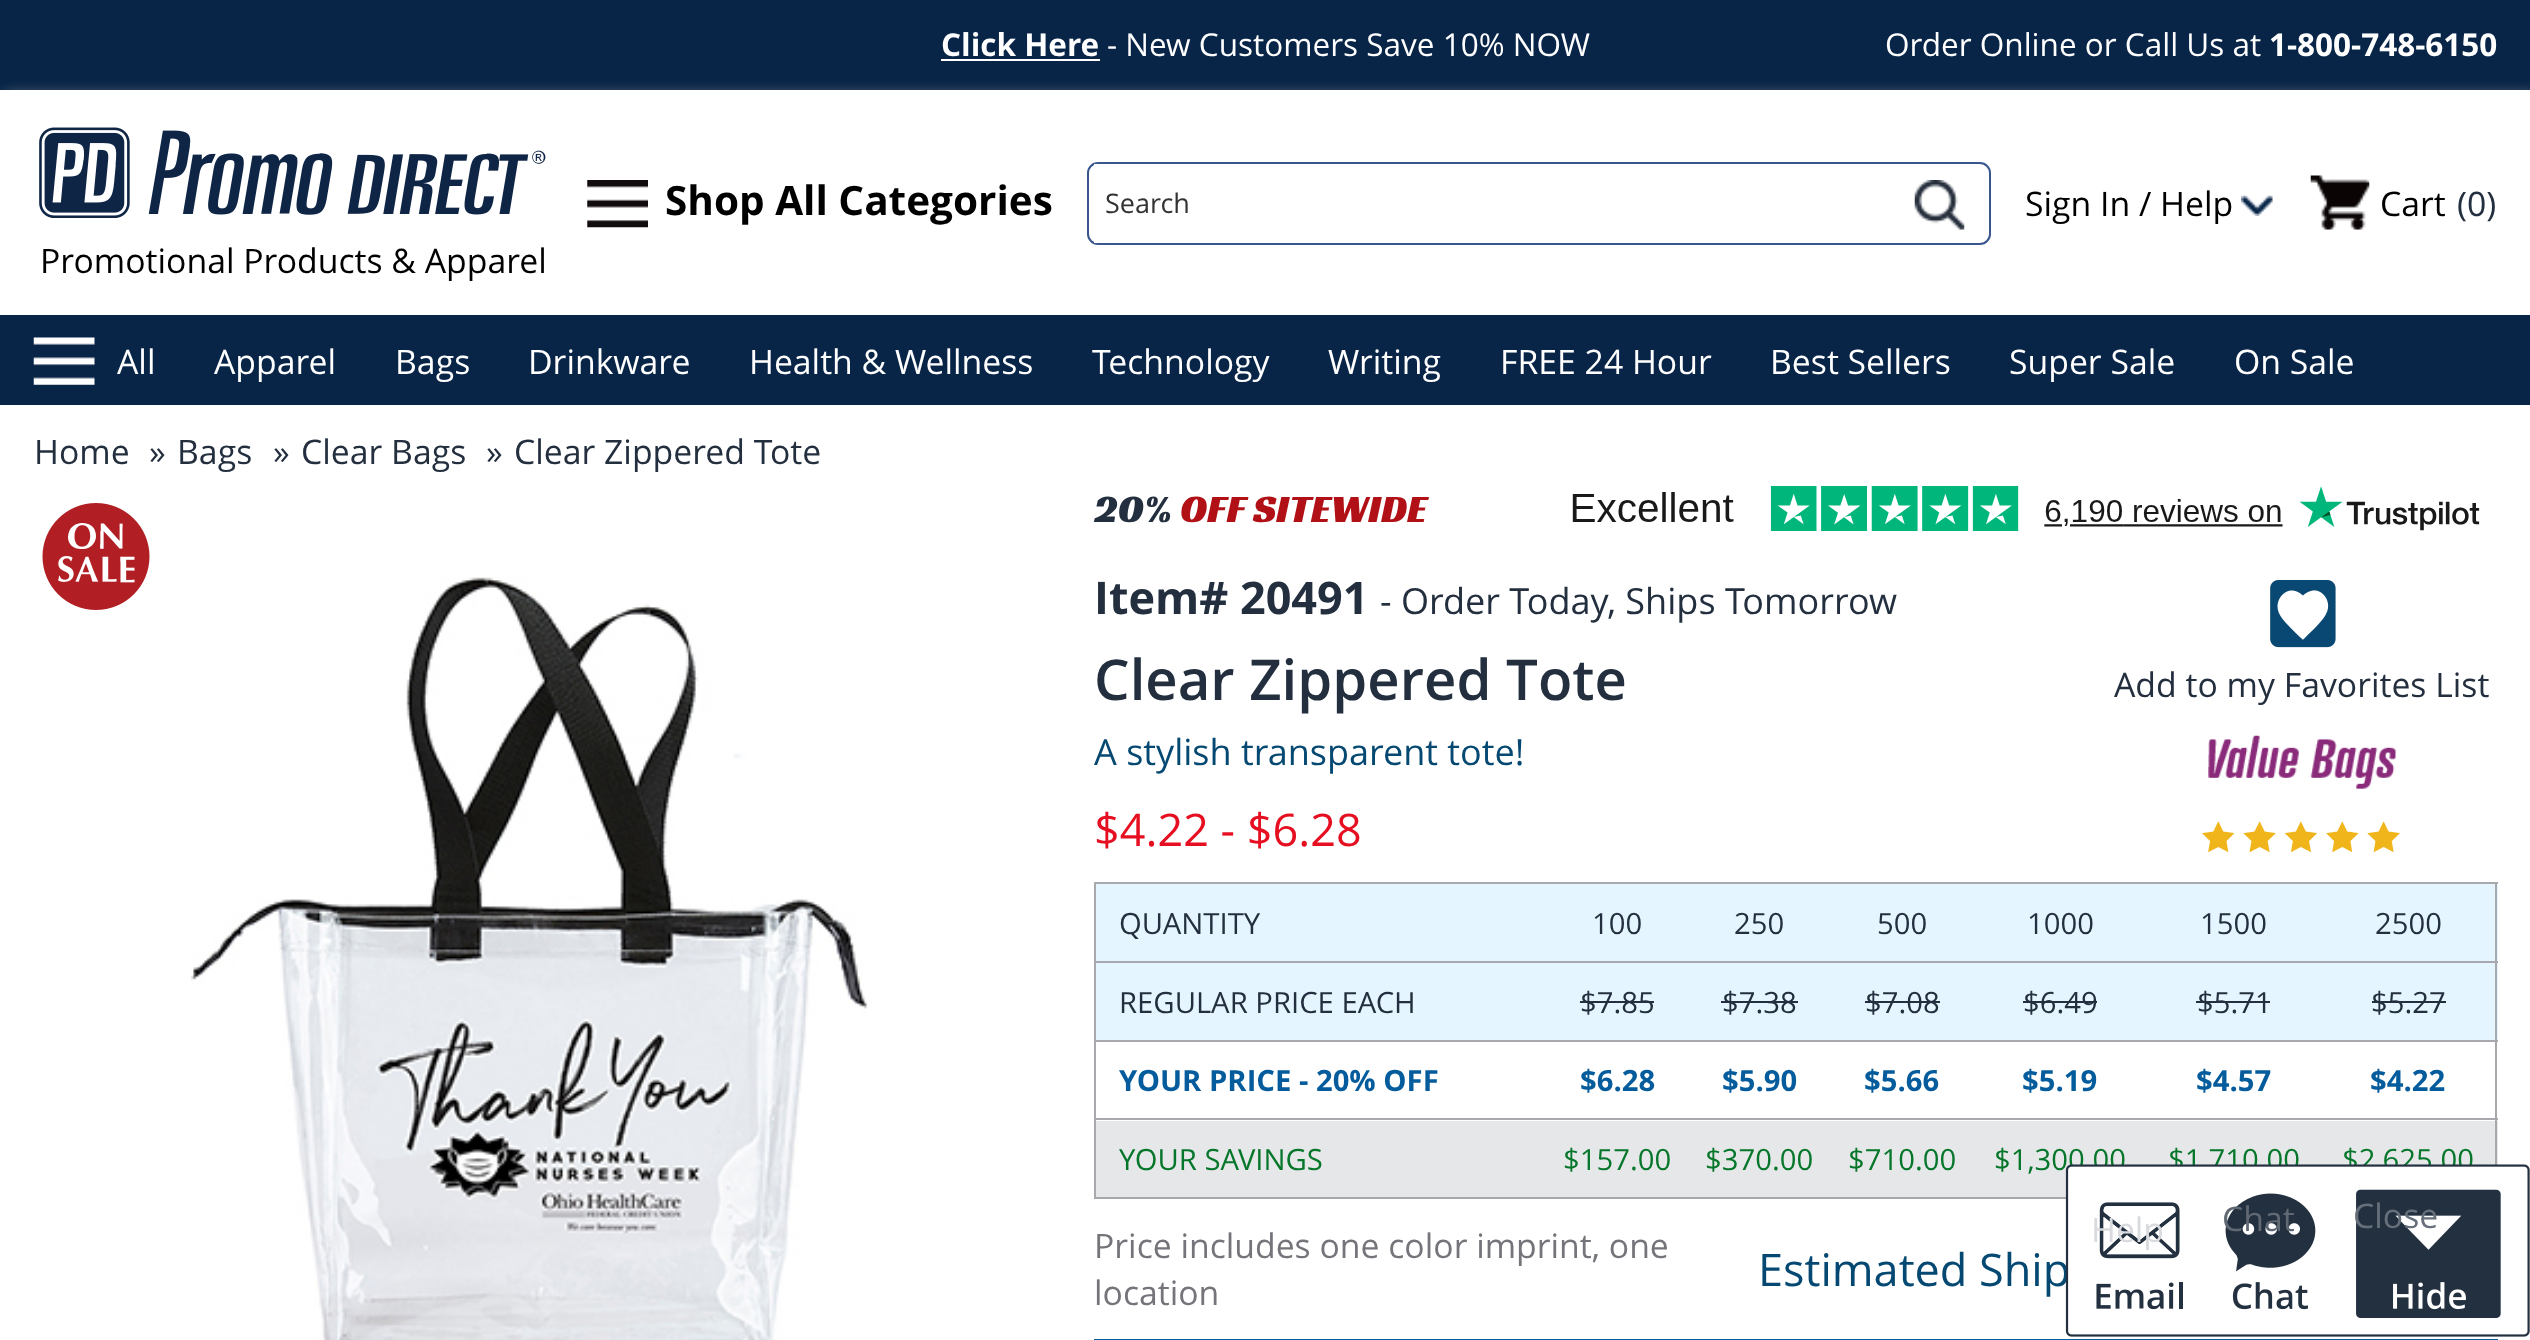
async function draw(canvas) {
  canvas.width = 2530;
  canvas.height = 1340;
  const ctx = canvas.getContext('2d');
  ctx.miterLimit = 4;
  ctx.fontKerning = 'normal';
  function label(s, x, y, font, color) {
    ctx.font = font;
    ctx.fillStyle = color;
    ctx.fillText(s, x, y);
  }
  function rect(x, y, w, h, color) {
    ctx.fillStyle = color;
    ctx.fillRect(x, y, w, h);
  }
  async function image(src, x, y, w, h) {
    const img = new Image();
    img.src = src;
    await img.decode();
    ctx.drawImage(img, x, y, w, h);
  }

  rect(0, 0, 2530, 1340, '#fff');
  rect(0, 0, 2530, 90, '#082548');
  label('Click Here', 941, 56, 'bold 31.5px Open Sans', '#fff');
  rect(941, 59, 159, 2, '#fff');
  label('- New Customers Save 10% NOW', 1107, 56, '31.5px Open Sans', '#fff');
  label('Order Online or Call Us at', 1885, 56, '31.5px Open Sans', '#fff');
  label('1-800-748-6150', 2269, 56, 'bold 31.5px Open Sans', '#fff');
  ctx.save();
  ctx.beginPath();
  ctx.rect(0, 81, 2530, 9);
  ctx.clip();
  ctx.fillStyle = '#888';
  ctx.filter = 'blur(7px)';
  ctx.beginPath();
  ctx.rect(5, 95, 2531, 225);
  ctx.fill();
  ctx.filter = 'none';
  ctx.restore();
  await image('assets/img1.png', 587, 180, 61, 48);
  label('Shop All Categories', 665, 215, 'bold 40.5px Open Sans', '#000');
  ctx.beginPath();
  ctx.roundRect(1088, 163, 902, 81, 10);
  ctx.strokeStyle = '#39578e';
  ctx.lineWidth = 2;
  ctx.stroke();
  rect(1094, 164, 4, 79, '#fff');
  label('Search', 1105, 213, '27px Open Sans', '#333');
  await image('assets/img2.png', 1914, 180, 51, 50);
  label('Sign In / Help', 2025, 216, '33.75px Open Sans', '#000');
  await image('assets/img3.png', 2241, 195, 32, 21);
  await image('assets/img4.png', 2310, 175, 60, 55);
  label('Cart', 2380, 216, '33.75px Open Sans', '#000');
  label('(0)', 2457, 216, '33.75px Open Sans', '#232f3e');
  await image('assets/img5.png', 39, 127, 507, 91);
  label('Promotional Products & Apparel', 40, 273, '33.75px Open Sans', '#000');
  rect(0, 315, 2530, 90, '#082548');
  await image('assets/img6.png', 33, 337, 62, 48);
  label('All', 117, 374, '33.75px Open Sans', '#fff');
  label('Apparel', 214, 374, '33.75px Open Sans', '#fff');
  label('Bags', 395, 374, '33.75px Open Sans', '#fff');
  label('Drinkware', 528, 374, '33.75px Open Sans', '#fff');
  label('Health & Wellness', 749, 374, '33.75px Open Sans', '#fff');
  label('Technology', 1092, 374, '33.75px Open Sans', '#fff');
  label('Writing', 1328, 374, '33.75px Open Sans', '#fff');
  label('FREE 24 Hour', 1500, 374, '33.75px Open Sans', '#fff');
  label('Best Sellers', 1770, 374, '33.75px Open Sans', '#fff');
  label('Super Sale', 2009, 374, '33.75px Open Sans', '#fff');
  label('On Sale', 2234, 374, '33.75px Open Sans', '#fff');
  label('Home', 34, 464, '33.75px Open Sans', '#232f3e');
  label('»', 149, 464, '33.75px Open Sans', '#232f3e');
  label('Bags', 177, 464, '33.75px Open Sans', '#232f3e');
  label('»', 273, 464, '33.75px Open Sans', '#232f3e');
  label('Clear Bags', 301, 464, '33.75px Open Sans', '#232f3e');
  label('»', 486, 464, '33.75px Open Sans', '#232f3e');
  label('Clear Zippered Tote', 514, 464, '33.75px Open Sans', '#232f3e');
  await image('assets/img7.png', 42, 503, 108, 107);
  await image('assets/img8.png', 190, 577, 678, 763);
  label('20%', 1094, 522, '39.5px Racing Sans One', '#232f3e');
  label('OFF SITEWIDE', 1180, 522, '39.5px Racing Sans One', '#b11116');
  await image('assets/img9.png', 1572, 486, 908, 45);
  label('Item# 20491', 1094, 614, 'bold 45px Open Sans', '#232f3e');
  label('- Order Today, Ships Tomorrow', 1380, 614, '36px Open Sans', '#232f3e');
  label('Clear Zippered Tote', 1094, 700, '600 56.25px Open Sans', '#232f3e');
  label('A stylish transparent tote!', 1094, 765, '36px Open Sans', '#054972');
  label('$4.22 - $6.28', 1094, 846, '45px Open Sans', '#e60f21');
  await image('assets/img10.png', 2270, 580, 66, 68);
  label('Add to my Favorites List', 2114, 697, '33.75px Open Sans', '#232f3e');
  await image('assets/img11.png', 2208, 735, 189, 54);
  await image('assets/img12.png', 2202, 821, 198, 32);
  rect(1096, 884, 1402, 77, '#e4f5ff');
  rect(1094, 882, 1404, 2, '#a7a9ac');
  rect(1094, 961, 1404, 2, '#a7a9ac');
  rect(1094, 1040, 1404, 2, '#a7a9ac');
  rect(1094, 1197, 972, 2, '#a7a9ac');
  rect(1094, 1118, 1404, 2, '#a7a9ac');
  rect(1094, 1118, 2, 81, '#a7a9ac');
  rect(1094, 1040, 2, 81, '#a7a9ac');
  rect(1094, 961, 2, 81, '#a7a9ac');
  rect(1094, 882, 2, 81, '#a7a9ac');
  label('QUANTITY', 1119, 934, '29.25px Open Sans', '#232f3e');
  label('100', 1592, 934, '29.25px Open Sans', '#232f3e');
  label('250', 1734, 934, '29.25px Open Sans', '#232f3e');
  label('500', 1877, 934, '29.25px Open Sans', '#232f3e');
  label('1000', 2027, 934, '29.25px Open Sans', '#232f3e');
  label('1500', 2200, 934, '29.25px Open Sans', '#232f3e');
  rect(1096, 963, 1402, 77, '#e4f5ff');
  rect(1096, 1121, 1402, 76, '#e6e7e8');
  rect(2495, 1118, 2, 47, '#a7a9ac');
  rect(2495, 1040, 2, 81, '#a7a9ac');
  rect(2495, 961, 2, 81, '#a7a9ac');
  rect(2495, 882, 2, 81, '#a7a9ac');
  label('2500', 2375, 934, '29.25px Open Sans', '#232f3e');
  label('REGULAR PRICE EACH', 1119, 1013, '29.25px Open Sans', '#232f3e');
  label('$7.85', 1580, 1013, '29.25px Open Sans', '#232f3e');
  rect(1580, 1001, 74, 2, '#232f3e');
  label('$7.38', 1722, 1013, '29.25px Open Sans', '#232f3e');
  rect(1721, 1001, 77, 2, '#232f3e');
  label('$7.08', 1865, 1013, '29.25px Open Sans', '#232f3e');
  rect(1865, 1001, 75, 2, '#232f3e');
  label('$6.49', 2023, 1013, '29.25px Open Sans', '#232f3e');
  rect(2023, 1001, 74, 2, '#232f3e');
  label('$5.71', 2197, 1013, '29.25px Open Sans', '#232f3e');
  rect(2196, 1001, 74, 2, '#232f3e');
  label('$5.27', 2371, 1013, '29.25px Open Sans', '#232f3e');
  rect(2372, 1001, 74, 2, '#232f3e');
  label('YOUR PRICE - 20% OFF', 1119, 1091, 'bold 29.25px Open Sans', '#045c9c');
  label('$6.28', 1580, 1091, 'bold 29.25px Open Sans', '#045c9c');
  label('$5.90', 1722, 1091, 'bold 29.25px Open Sans', '#045c9c');
  label('$5.66', 1864, 1091, 'bold 29.25px Open Sans', '#045c9c');
  label('$5.19', 2022, 1091, 'bold 29.25px Open Sans', '#045c9c');
  label('$4.57', 2196, 1091, 'bold 29.25px Open Sans', '#045c9c');
  label('$4.22', 2370, 1091, 'bold 29.25px Open Sans', '#045c9c');
  label('YOUR SAVINGS', 1119, 1170, '29.25px Open Sans', '#05762a');
  label('$157.00', 1563, 1170, '29.25px Open Sans', '#05762a');
  label('$370.00', 1705, 1170, '29.25px Open Sans', '#05762a');
  label('$710.00', 1848, 1170, '29.25px Open Sans', '#05762a');
  label('$1,300.00', 1994, 1170, '29.25px Open Sans', '#05762a');
  label('$1,710.00', 2168, 1170, '29.25px Open Sans', '#05762a');
  label('$2,625.00', 2342, 1170, '29.25px Open Sans', '#05762a');
  label('Price includes one color imprint, one', 1094, 1258, '33.75px Open Sans', '#74747b');
  label('location', 1094, 1305, '33.75px Open Sans', '#74747b');
  label('Estimated Ship', 1758, 1286, '45px Open Sans', '#054972');
  rect(1094, 1339, 1404, 1, '#035fa0');
  await image('assets/img13.png', 2065, 1164, 465, 173);
  label('Help', 2091, 1242, '33.75px Open Sans', '#d8dadd');
  label('Chat', 2222, 1231, '33.75px Open Sans', '#5f6873');
  label('Close', 2353, 1228, '33.75px Open Sans', '#67707a');
}

draw(document.querySelector('canvas'));
